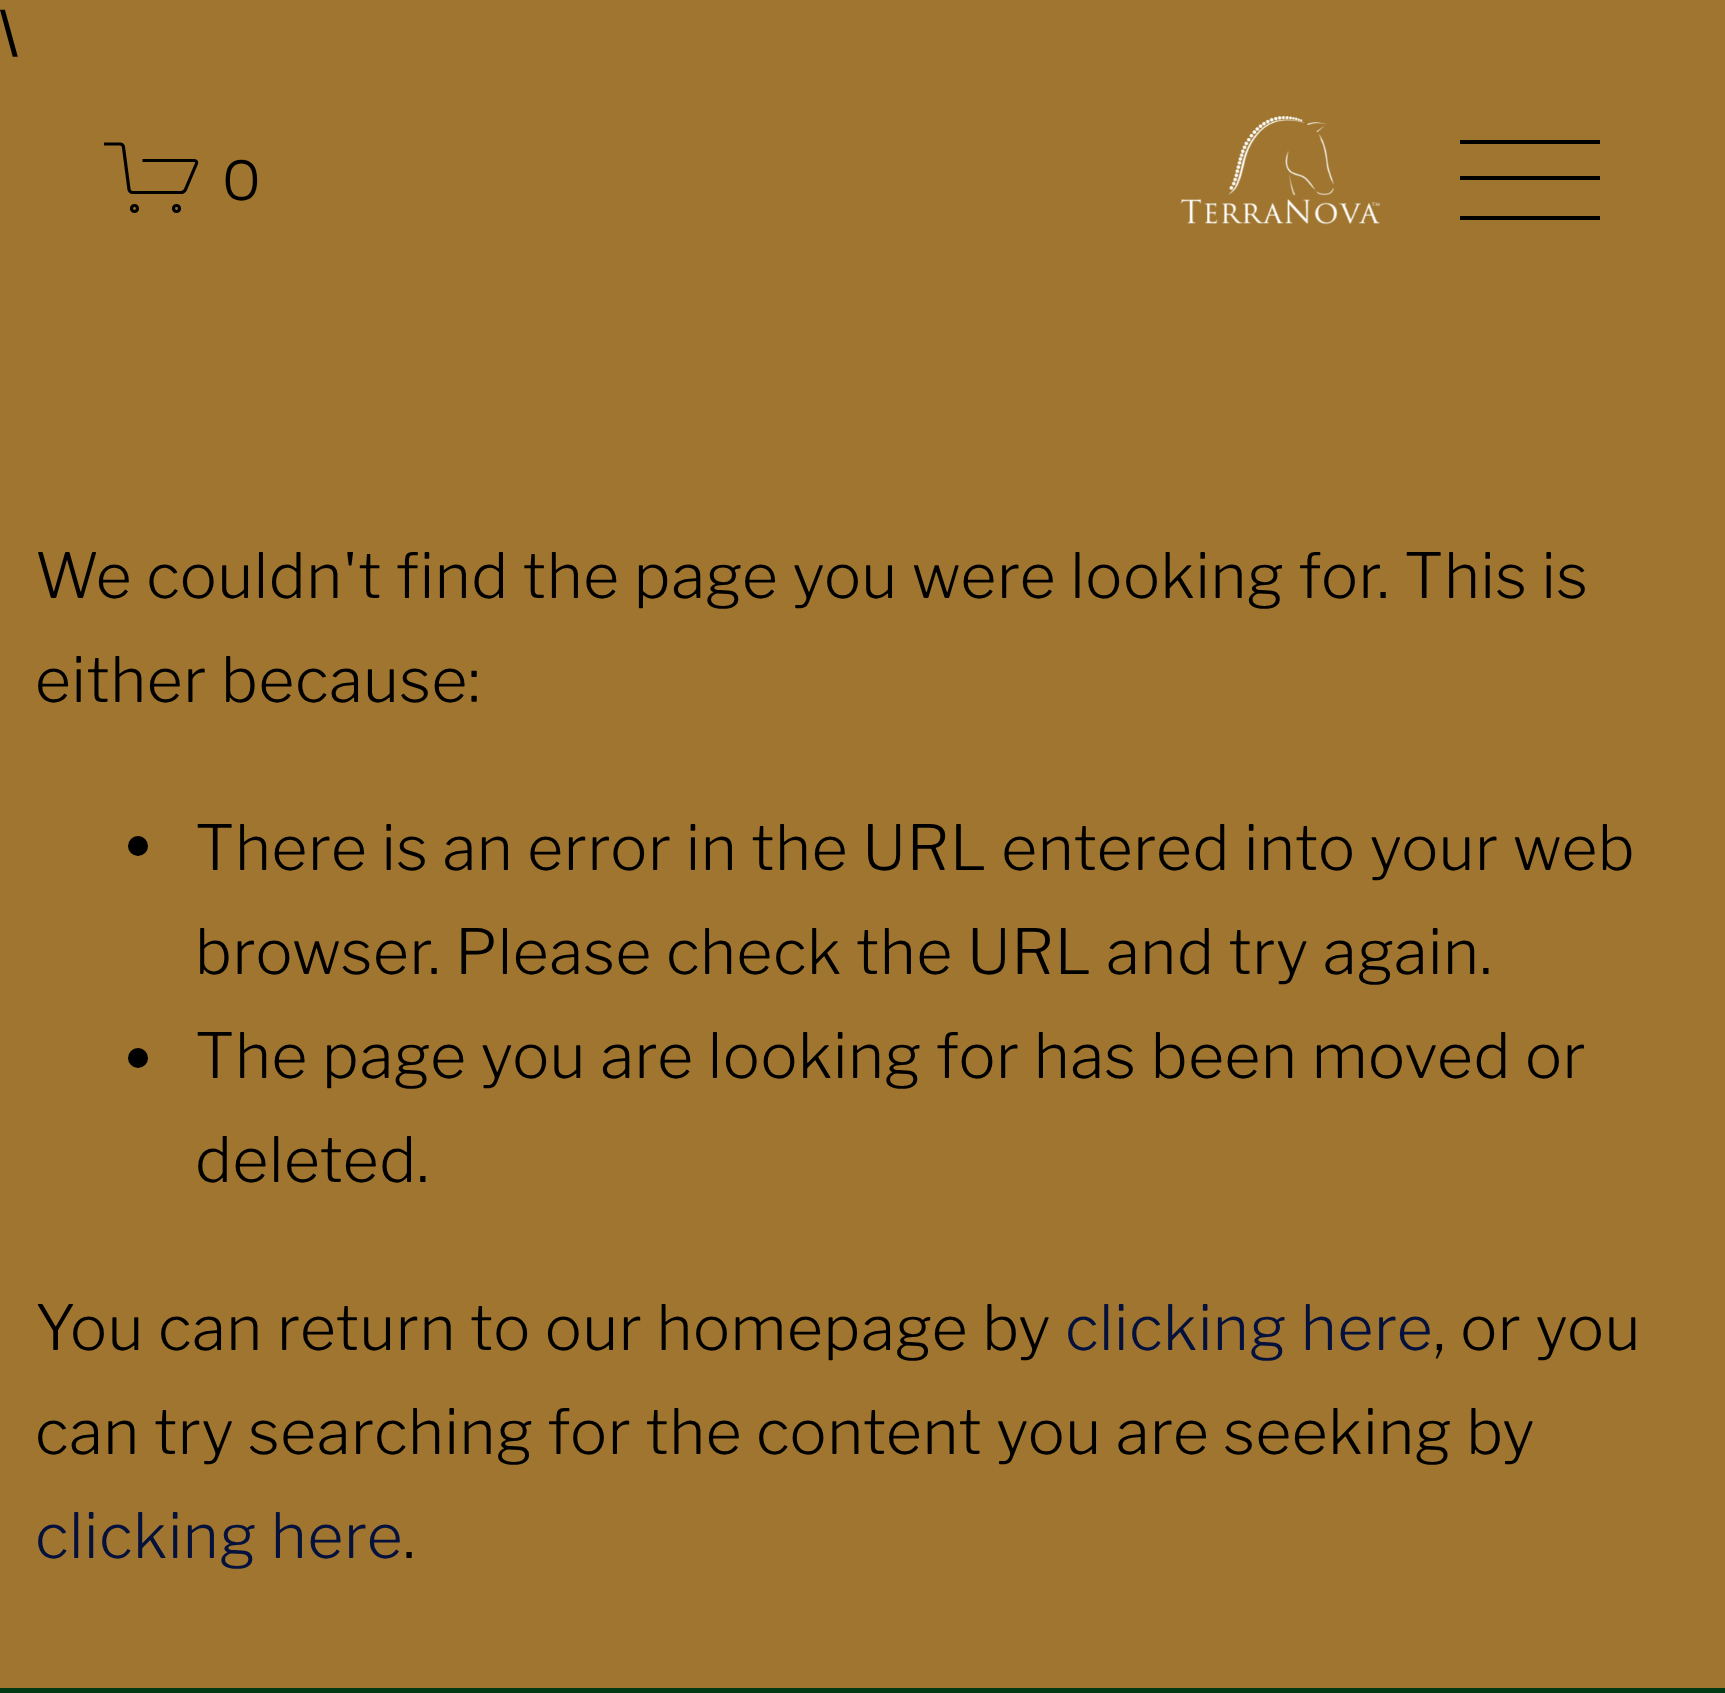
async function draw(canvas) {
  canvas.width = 1725;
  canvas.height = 1693;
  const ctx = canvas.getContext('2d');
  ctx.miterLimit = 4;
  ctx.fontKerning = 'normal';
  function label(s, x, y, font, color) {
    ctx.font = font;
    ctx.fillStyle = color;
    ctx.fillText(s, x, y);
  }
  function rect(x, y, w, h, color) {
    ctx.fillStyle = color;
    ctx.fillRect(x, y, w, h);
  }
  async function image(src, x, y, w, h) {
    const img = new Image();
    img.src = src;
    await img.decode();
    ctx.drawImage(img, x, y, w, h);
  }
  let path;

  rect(0, 0, 1725, 1693, '#9f752f');
  label('\\', 0, 56, '64px Liberation Sans', '#000');
  ctx.beginPath();
  ctx.arc(176.5, 208.5, 3, 0, 2 * Math.PI);
  ctx.strokeStyle = '#000';
  ctx.lineWidth = 3.2;
  ctx.stroke();
  ctx.beginPath();
  ctx.arc(134.5, 208.5, 3, 0, 2 * Math.PI);
  ctx.stroke();
  path = new Path2D('M104 144H120C122 144 123.5 145.5 123.5 147.5L129 189.5C129.5 191 131 192.5 132.5 192.5H181C182.5 192.5 185 191 185.5 189.5L196.5 163.5C197 162 196 160.5 194.5 160.5H142.5');
  ctx.stroke(path);
  ctx.letterSpacing = '3px';
  label('0', 222, 200, '60px Maven Pro', '#000');
  await image('assets/img1.png', 1180, 116, 200, 109);
  rect(1460, 140, 140, 4, '#000');
  rect(1460, 176, 140, 4, '#000');
  rect(1460, 216, 140, 4, '#000');
  ctx.letterSpacing = '0.62px';
  label('We couldn\'t find the page you were looking for. This is', 35, 598, '300 61.9px Libre Franklin', '#000');
  label('either because:', 35, 702, '300 61.9px Libre Franklin', '#000');
  ctx.beginPath();
  ctx.arc(138, 846, 10, 0, 2 * Math.PI);
  ctx.fill();
  label('There is an error in the URL entered into your web', 195, 870, '300 61.9px Libre Franklin', '#000');
  label('browser. Please check the URL and try again.', 195, 974, '300 61.9px Libre Franklin', '#000');
  ctx.beginPath();
  ctx.arc(138, 1058, 10, 0, 2 * Math.PI);
  ctx.fill();
  label('The page you are looking for has been moved or', 195, 1078, '300 61.9px Libre Franklin', '#000');
  label('deleted.', 195, 1182, '300 61.9px Libre Franklin', '#000');
  label('You can return to our homepage by', 35, 1350, '300 61.9px Libre Franklin', '#000');
  label('clicking here', 1065, 1350, '300 61.9px Libre Franklin', '#05113d');
  label(', or you', 1433, 1350, '300 61.9px Libre Franklin', '#000');
  label('can try searching for the', 35, 1454, '300 61.9px Libre Franklin', '#000');
  label('content you are seeking by', 756, 1454, '300 61.9px Libre Franklin', '#000');
  label('clicking here', 35, 1558, '300 61.9px Libre Franklin', '#05113d');
  label('.', 403, 1558, '300 61.9px Libre Franklin', '#000');
  rect(0, 1688, 1725, 5, '#003913');
}

draw(document.querySelector('canvas'));
